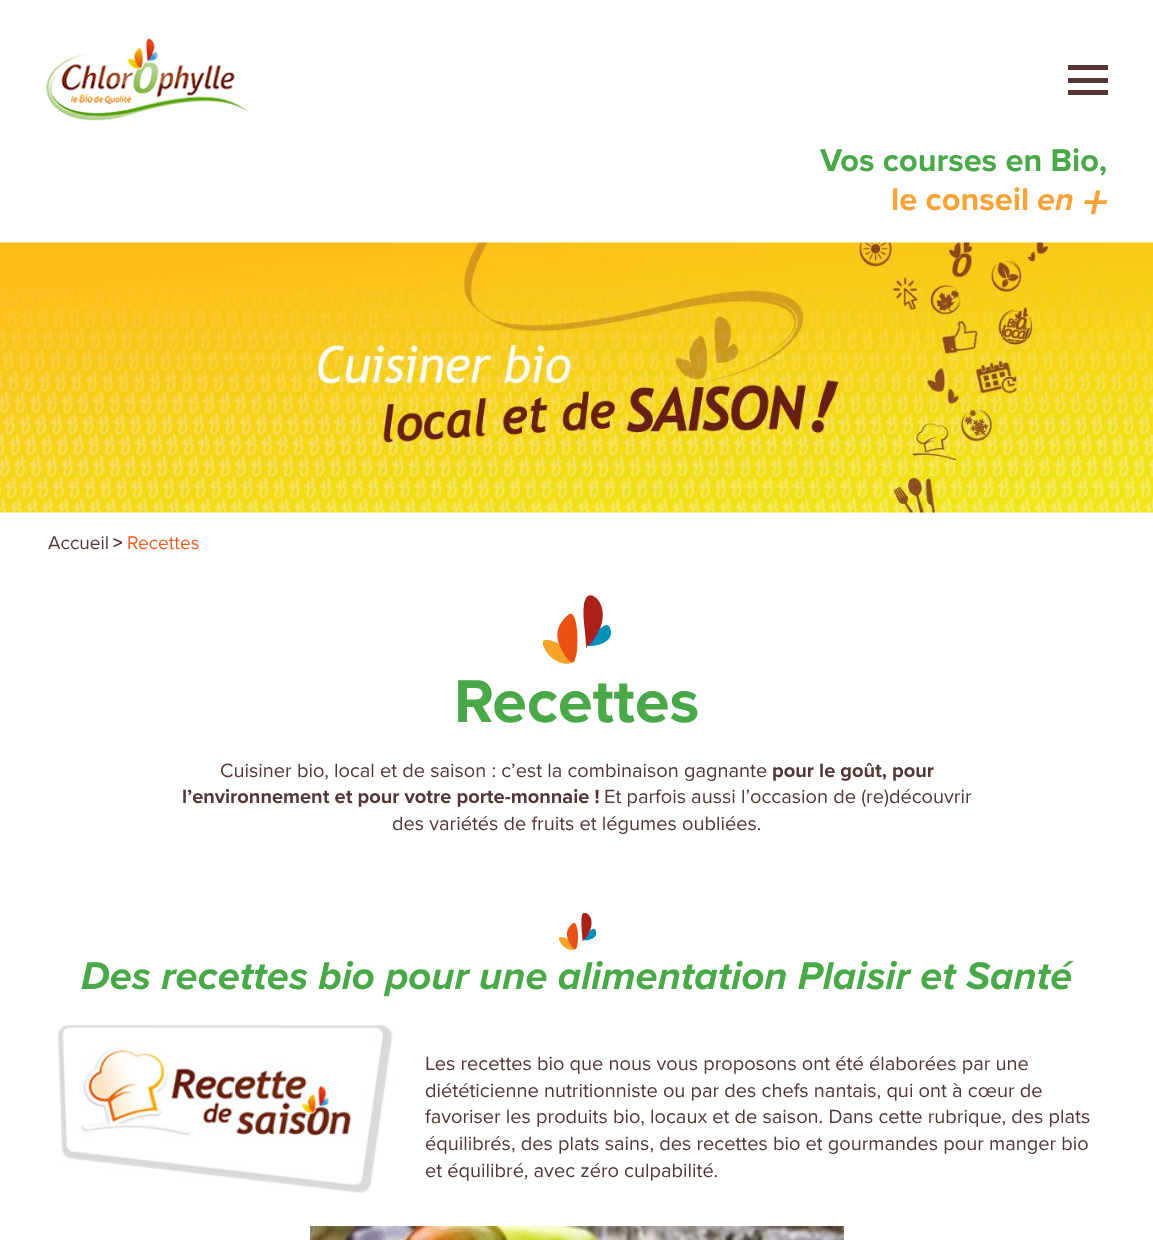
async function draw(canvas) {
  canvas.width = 1153;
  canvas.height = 1240;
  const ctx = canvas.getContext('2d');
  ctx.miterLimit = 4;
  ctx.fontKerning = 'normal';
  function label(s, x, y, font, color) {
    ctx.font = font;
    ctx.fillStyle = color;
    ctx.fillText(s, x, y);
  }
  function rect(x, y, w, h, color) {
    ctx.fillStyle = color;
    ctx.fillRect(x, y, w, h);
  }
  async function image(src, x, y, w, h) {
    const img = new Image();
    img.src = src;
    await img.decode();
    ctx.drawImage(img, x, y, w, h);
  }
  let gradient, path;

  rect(0, 0, 1153, 1240, '#fff');
  await image('assets/img1.png', 46, 38, 203, 83);
  rect(1068, 65, 40, 5, '#553735');
  rect(1068, 78, 40, 5, '#553735');
  rect(1068, 90, 40, 5, '#553735');
  label('Vos courses en Bio,', 820, 171, 'bold 32.5px Proxima Nova', '#49a948');
  label('le conseil', 891, 210, 'bold 32.5px Proxima Nova', '#f9a238');
  label('en', 1037, 210, 'italic bold 32.5px Proxima Nova', '#f9a238');
  label('+', 1082, 219, 'italic bold 50px Proxima Nova', '#f9a238');
  await image('assets/img2.png', 0, 242, 1153, 271);
  label('Accueil', 48, 549, '19px Proxima Nova', '#553735');
  label('>', 113, 549, 'bold 19px Proxima Nova', '#553735');
  label('Recettes', 127, 549, '19px Proxima Nova', '#f05d27');
  ctx.save();
  ctx.beginPath();
  ctx.rect(543, 595, 68, 69);
  ctx.clip();
  gradient = ctx.createLinearGradient(24, 1088, 26, 1088);
  gradient.addColorStop(0, '#f2e513');
  gradient.addColorStop(0.3, '#f6cf13');
  gradient.addColorStop(0.51, '#fbbd13');
  gradient.addColorStop(0.73, '#faba15');
  gradient.addColorStop(0.88, '#f8b11d');
  gradient.addColorStop(1, '#f6a32a');
  ctx.fillStyle = gradient;
  path = new Path2D('M549 640C547.5 640 544 639.5 543 641C541.5 642.5 543 645.5 544 647.5C546.5 652.5 550 657.5 555 660C557.5 661.5 560.5 662.5 563.5 663.5C568 664 578.5 664 574 656.5C571 652 566 648 561 645C557.5 643 553.5 641 549 640Z');
  ctx.fill(path);
  ctx.restore();
  gradient = ctx.createLinearGradient(23, 1090, 24, 1090);
  gradient.addColorStop(0, '#fcc126');
  gradient.addColorStop(0.09, '#f9b223');
  gradient.addColorStop(0.37, '#f2881c');
  gradient.addColorStop(0.63, '#ed6a18');
  gradient.addColorStop(0.85, '#ea5815');
  gradient.addColorStop(1, '#e95214');
  ctx.fillStyle = gradient;
  path = new Path2D('M568 615C570 613 572 614 573 615C578 622 578 643 577 651C575 663 572 667 564 654C558 644 554 633 561 623C563 620 565 617 568 615Z');
  ctx.fill(path);
  gradient = ctx.createLinearGradient(690, 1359, 690, 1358);
  gradient.addColorStop(0, '#e84720');
  gradient.addColorStop(0.51, '#cc2717');
  gradient.addColorStop(0.73, '#c92617');
  gradient.addColorStop(0.86, '#c12417');
  gradient.addColorStop(0.96, '#b32117');
  gradient.addColorStop(1, '#ab2017');
  ctx.fillStyle = gradient;
  path = new Path2D('M586 647C586 632 582 618 584 604C587 587 600 598 602 608C604 616 602 626 598 633L591 641C591 642 585 647 587 648C586 648 586 648 586 647Z');
  ctx.fill(path);
  gradient = ctx.createLinearGradient(417, 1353, 418, 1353);
  gradient.addColorStop(0, '#b5ddd9');
  gradient.addColorStop(0.07, '#add9d8');
  gradient.addColorStop(0.16, '#98d0d8');
  gradient.addColorStop(0.28, '#75c0d8');
  gradient.addColorStop(0.42, '#45abd7');
  gradient.addColorStop(0.51, '#219bd7');
  gradient.addColorStop(0.75, '#1e9ad5');
  gradient.addColorStop(0.87, '#1797ce');
  gradient.addColorStop(0.96, '#0a93c3');
  gradient.addColorStop(1, '#0090bb');
  ctx.fillStyle = gradient;
  path = new Path2D('M598 630.5C601 627.5 604 625 606.5 625C608 625 609.5 626 610 628C616.5 644 591 647.5 587 645.5C589 645.5 594 639 598 630.5Z');
  ctx.fill(path);
  ctx.fillStyle = '#a01a5b';
  path = new Path2D('M599 630.5C594.5 635 590 642 588 644C587 644.5 587.5 645 588 645.5C590 645.5 595 639 599 630.5');
  ctx.fill(path);
  label('Recettes', 454, 722, 'bold 62.5px Proxima Nova', '#49a948');
  label('Cuisiner bio, local et de saison : c’est la combinaison gagnante', 220, 777, '20px Proxima Nova', '#553735');
  label('pour le goût, pour', 772, 777, 'bold 20px Proxima Nova', '#553735');
  label('l’environnement et pour votre porte-monnaie !', 182, 803, 'bold 20px Proxima Nova', '#553735');
  label('Et parfois aussi l’occasion de (re)découvrir', 604, 803, '20px Proxima Nova', '#553735');
  label('des variétés de fruits et légumes oubliées.', 392, 830, '20px Proxima Nova', '#553735');
  await image('assets/img3.png', 559, 913, 37, 37);
  label('Des recettes bio pour une alimentation Plaisir et Santé', 81, 989, 'italic bold 40px Proxima Nova', '#49a948');
  await image('assets/img4.png', 57, 1024, 337, 169);
  label('Les recettes bio que nous vous proposons ont été élaborées par une', 425, 1070, '20px Proxima Nova', '#553735');
  label('diététicienne nutritionniste ou par des chefs nantais, qui ont à cœur de', 425, 1097, '20px Proxima Nova', '#553735');
  label('favoriser les produits bio, locaux et de saison. Dans cette rubrique, des plats', 425, 1123, '20px Proxima Nova', '#553735');
  label('équilibrés, des plats sains, des recettes bio et gourmandes pour manger bio', 425, 1150, '20px Proxima Nova', '#553735');
  label('et équilibré, avec zéro culpabilité.', 425, 1177, '20px Proxima Nova', '#553735');
  await image('assets/img5.png', 310, 1226, 534, 14);
}

draw(document.querySelector('canvas'));
